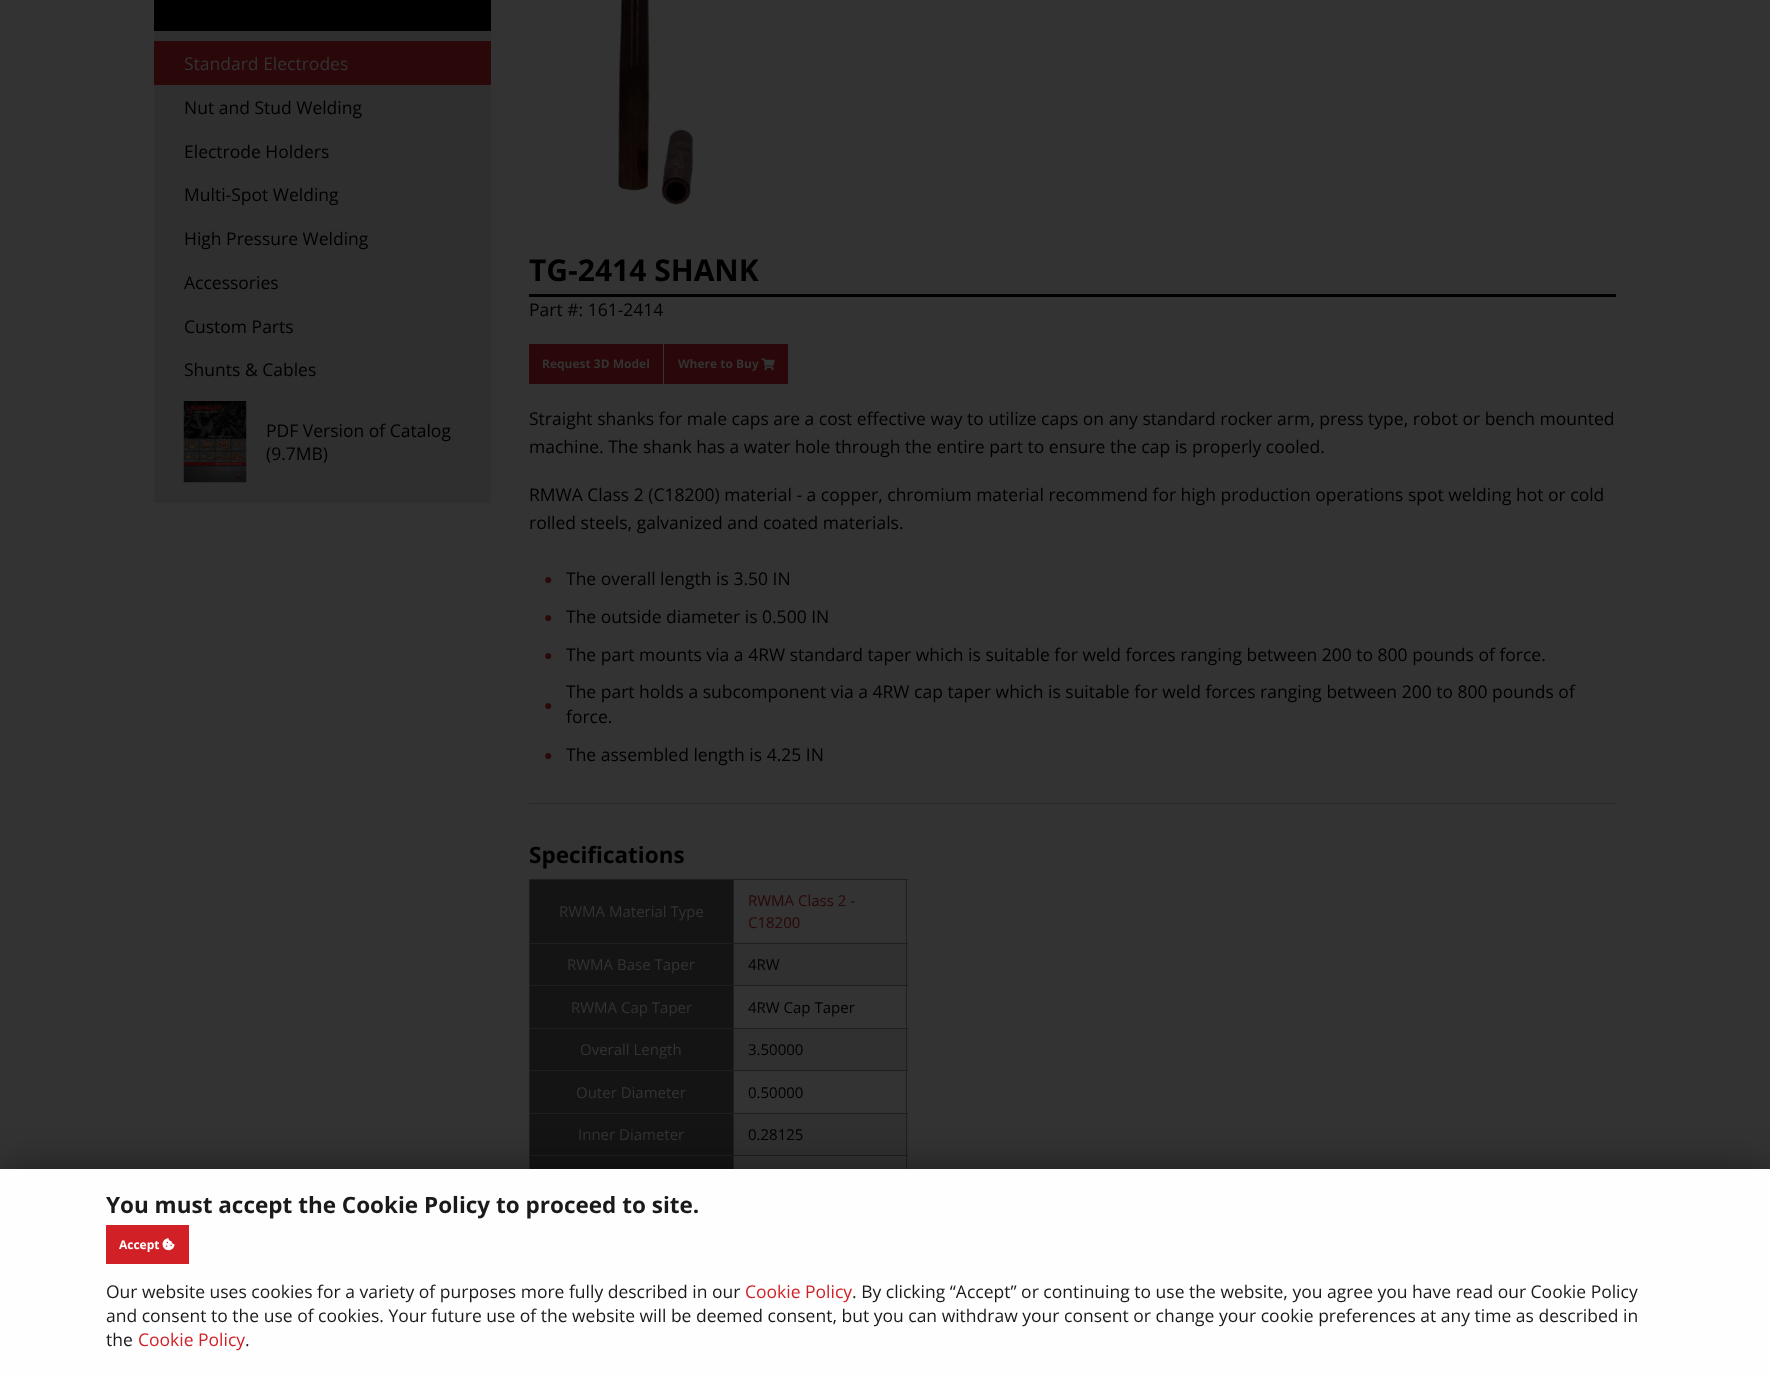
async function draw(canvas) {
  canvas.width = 1770;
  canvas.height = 1377;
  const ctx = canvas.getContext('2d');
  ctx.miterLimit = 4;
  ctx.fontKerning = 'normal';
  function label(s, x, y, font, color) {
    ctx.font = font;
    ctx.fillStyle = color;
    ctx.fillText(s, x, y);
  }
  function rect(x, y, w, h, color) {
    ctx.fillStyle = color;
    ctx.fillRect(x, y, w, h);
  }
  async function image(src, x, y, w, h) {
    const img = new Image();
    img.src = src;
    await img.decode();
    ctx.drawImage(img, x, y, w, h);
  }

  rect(0, 0, 1770, 1377, '#333');
  rect(154, 31, 337, 472, '#2f2f30');
  rect(154, 0, 337, 31, '#000');
  rect(154, 41, 337, 44, '#2a0708');
  label('Standard Electrodes', 184, 70, '17.5px Open Sans', '#333');
  label('Nut and Stud Welding', 184, 114, '17.5px Open Sans', '#000');
  label('Electrode Holders', 184, 158, '17.5px Open Sans', '#000');
  label('Multi-Spot Welding', 184, 201, '17.5px Open Sans', '#000');
  label('High Pressure Welding', 184, 245, '17.5px Open Sans', '#000');
  label('Accessories', 184, 289, '17.5px Open Sans', '#000');
  label('Custom Parts', 184, 333, '17.5px Open Sans', '#000');
  label('Shunts & Cables', 184, 376, '17.5px Open Sans', '#000');
  await image('assets/img1.png', 183, 401, 64, 82);
  label('PDF Version of Catalog', 266, 437, '17.5px Open Sans', '#000');
  label('(9.7MB)', 266, 460, '17.5px Open Sans', '#000');
  await image('assets/img2.png', 618, 0, 76, 205);
  rect(529, 294, 1087, 3, '#000');
  label('TG-2414 SHANK', 529, 281, 'bold 30px Open Sans', '#000');
  label('Part #: 161-2414', 529, 316, '17.5px Open Sans', '#000');
  rect(529, 344, 134, 40, '#2a0708');
  label('Request 3D Model', 542, 368, 'bold 12px Open Sans', '#333');
  rect(664, 344, 124, 40, '#2a0708');
  label('Where to Buy', 678, 368, 'bold 12px Open Sans', '#333');
  await image('assets/img3.png', 761, 358, 14, 13);
  label('Straight shanks for male caps are a cost effective way to utilize caps on any standard rocker arm, press type, robot or bench mounted', 529, 425, '17.5px Open Sans', '#000');
  label('machine. The shank has a water hole through the entire part to ensure the cap is properly cooled.', 529, 453, '17.5px Open Sans', '#000');
  label('RMWA Class 2 (C18200) material - a copper, chromium material recommend for high production operations spot welding hot or cold', 529, 501, '17.5px Open Sans', '#000');
  label('rolled steels, galvanized and coated materials.', 529, 529, '17.5px Open Sans', '#000');
  label('●', 544, 584, '14px Liberation Sans', '#2a0708');
  label('The overall length is 3.50 IN', 566, 585, '17.5px Open Sans', '#000');
  label('●', 544, 622, '14px Liberation Sans', '#2a0708');
  label('The outside diameter is 0.500 IN', 566, 623, '17.5px Open Sans', '#000');
  label('●', 544, 660, '14px Liberation Sans', '#2a0708');
  label('The part mounts via a 4RW standard taper which is suitable for weld forces ranging between 200 to 800 pounds of force.', 566, 661, '17.5px Open Sans', '#000');
  label('The part holds a subcomponent via a 4RW cap taper which is suitable for weld forces ranging between 200 to 800 pounds of', 566, 698, '17.5px Open Sans', '#000');
  label('●', 544, 710, '14px Liberation Sans', '#2a0708');
  label('force.', 566, 723, '17.5px Open Sans', '#000');
  label('●', 544, 760, '14px Liberation Sans', '#2a0708');
  label('The assembled length is 4.25 IN', 566, 761, '17.5px Open Sans', '#000');
  rect(529, 803, 1087, 1, '#282828');
  label('Specifications', 529, 863, 'bold 22.5px Open Sans', '#000');
  rect(530, 880, 203, 63, '#141414');
  rect(733, 879, 175, 1, '#1f1f1f');
  rect(733, 943, 175, 1, '#1f1f1f');
  rect(733, 985, 175, 1, '#1f1f1f');
  rect(733, 1028, 175, 1, '#1f1f1f');
  rect(733, 1070, 175, 1, '#1f1f1f');
  rect(733, 1113, 175, 1, '#1f1f1f');
  rect(733, 1155, 175, 1, '#1f1f1f');
  rect(733, 1155, 1, 14, '#1f1f1f');
  rect(529, 1155, 205, 1, '#1f1f1f');
  rect(733, 1113, 1, 43, '#1f1f1f');
  rect(529, 1113, 205, 1, '#1f1f1f');
  rect(733, 1070, 1, 44, '#1f1f1f');
  rect(529, 1070, 205, 1, '#1f1f1f');
  rect(733, 1028, 1, 43, '#1f1f1f');
  rect(529, 1028, 205, 1, '#1f1f1f');
  rect(733, 985, 1, 44, '#1f1f1f');
  rect(529, 985, 205, 1, '#1f1f1f');
  rect(733, 943, 1, 43, '#1f1f1f');
  rect(529, 943, 205, 1, '#1f1f1f');
  rect(733, 879, 1, 65, '#1f1f1f');
  rect(529, 879, 205, 1, '#1f1f1f');
  rect(529, 1155, 1, 14, '#1f1f1f');
  rect(529, 1113, 1, 43, '#1f1f1f');
  rect(529, 1070, 1, 44, '#1f1f1f');
  rect(529, 1028, 1, 43, '#1f1f1f');
  rect(529, 985, 1, 44, '#1f1f1f');
  rect(529, 943, 1, 43, '#1f1f1f');
  rect(529, 879, 1, 65, '#1f1f1f');
  label('RWMA Material Type', 559, 917, '15px Open Sans', '#333');
  rect(734, 944, 174, 41, '#303030');
  rect(734, 1029, 174, 41, '#303030');
  rect(734, 1114, 174, 41, '#303030');
  rect(906, 1155, 1, 14, '#1f1f1f');
  rect(906, 1113, 1, 43, '#1f1f1f');
  rect(906, 1070, 1, 44, '#1f1f1f');
  rect(906, 1028, 1, 43, '#1f1f1f');
  rect(906, 985, 1, 44, '#1f1f1f');
  rect(906, 943, 1, 43, '#1f1f1f');
  rect(906, 879, 1, 65, '#1f1f1f');
  label('RWMA Class 2 -', 748, 906, '15px Open Sans', '#2a0708');
  label('C18200', 748, 928, '15px Open Sans', '#2a0708');
  rect(530, 944, 203, 41, '#141414');
  label('RWMA Base Taper', 567, 970, '15px Open Sans', '#333');
  label('4RW', 748, 970, '15px Open Sans', '#000');
  rect(530, 986, 203, 42, '#141414');
  label('RWMA Cap Taper', 571, 1013, '15px Open Sans', '#333');
  label('4RW Cap Taper', 748, 1013, '15px Open Sans', '#000');
  rect(530, 1029, 203, 41, '#141414');
  label('Overall Length', 580, 1055, '15px Open Sans', '#333');
  label('3.50000', 748, 1055, '15px Open Sans', '#000');
  rect(530, 1071, 203, 42, '#141414');
  label('Outer Diameter', 576, 1098, '15px Open Sans', '#333');
  label('0.50000', 748, 1098, '15px Open Sans', '#000');
  rect(530, 1114, 203, 41, '#141414');
  label('Inner Diameter', 578, 1140, '15px Open Sans', '#333');
  label('0.28125', 748, 1140, '15px Open Sans', '#000');
  rect(530, 1156, 203, 13, '#141414');
  ctx.fillStyle = '#00000066';
  ctx.filter = 'blur(19px)';
  ctx.beginPath();
  ctx.rect(0, 1169, 1770, 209);
  ctx.fill();
  ctx.filter = 'none';
  rect(0, 1169, 1770, 208, '#fefefe');
  label('You must accept the Cookie Policy to proceed to site.', 106, 1213, 'bold 22.5px Open Sans', '#1a1a1a');
  rect(106, 1225, 83, 39, '#d12127');
  label('Accept', 119, 1249, 'bold 12px Open Sans', '#fff');
  await image('assets/img4.png', 162, 1238, 13, 13);
  label('Our website uses cookies for a variety of purposes more fully described in our', 106, 1298, '17.5px Open Sans', '#1a1a1a');
  label('Cookie Policy', 745, 1298, '17.5px Open Sans', '#d12127');
  label('. By clicking “Accept” or continuing to use the website, you agree you have read our Cookie Policy', 852, 1298, '17.5px Open Sans', '#1a1a1a');
  label('and consent to the use of cookies. Your future use of the website will be deemed consent, but you can withdraw your consent or change your cookie preferences at any time as described in', 106, 1322, '17.5px Open Sans', '#1a1a1a');
  label('the', 106, 1346, '17.5px Open Sans', '#1a1a1a');
  label('Cookie Policy', 138, 1346, '17.5px Open Sans', '#d12127');
  label('.', 245, 1346, '17.5px Open Sans', '#1a1a1a');
}

draw(document.querySelector('canvas'));
